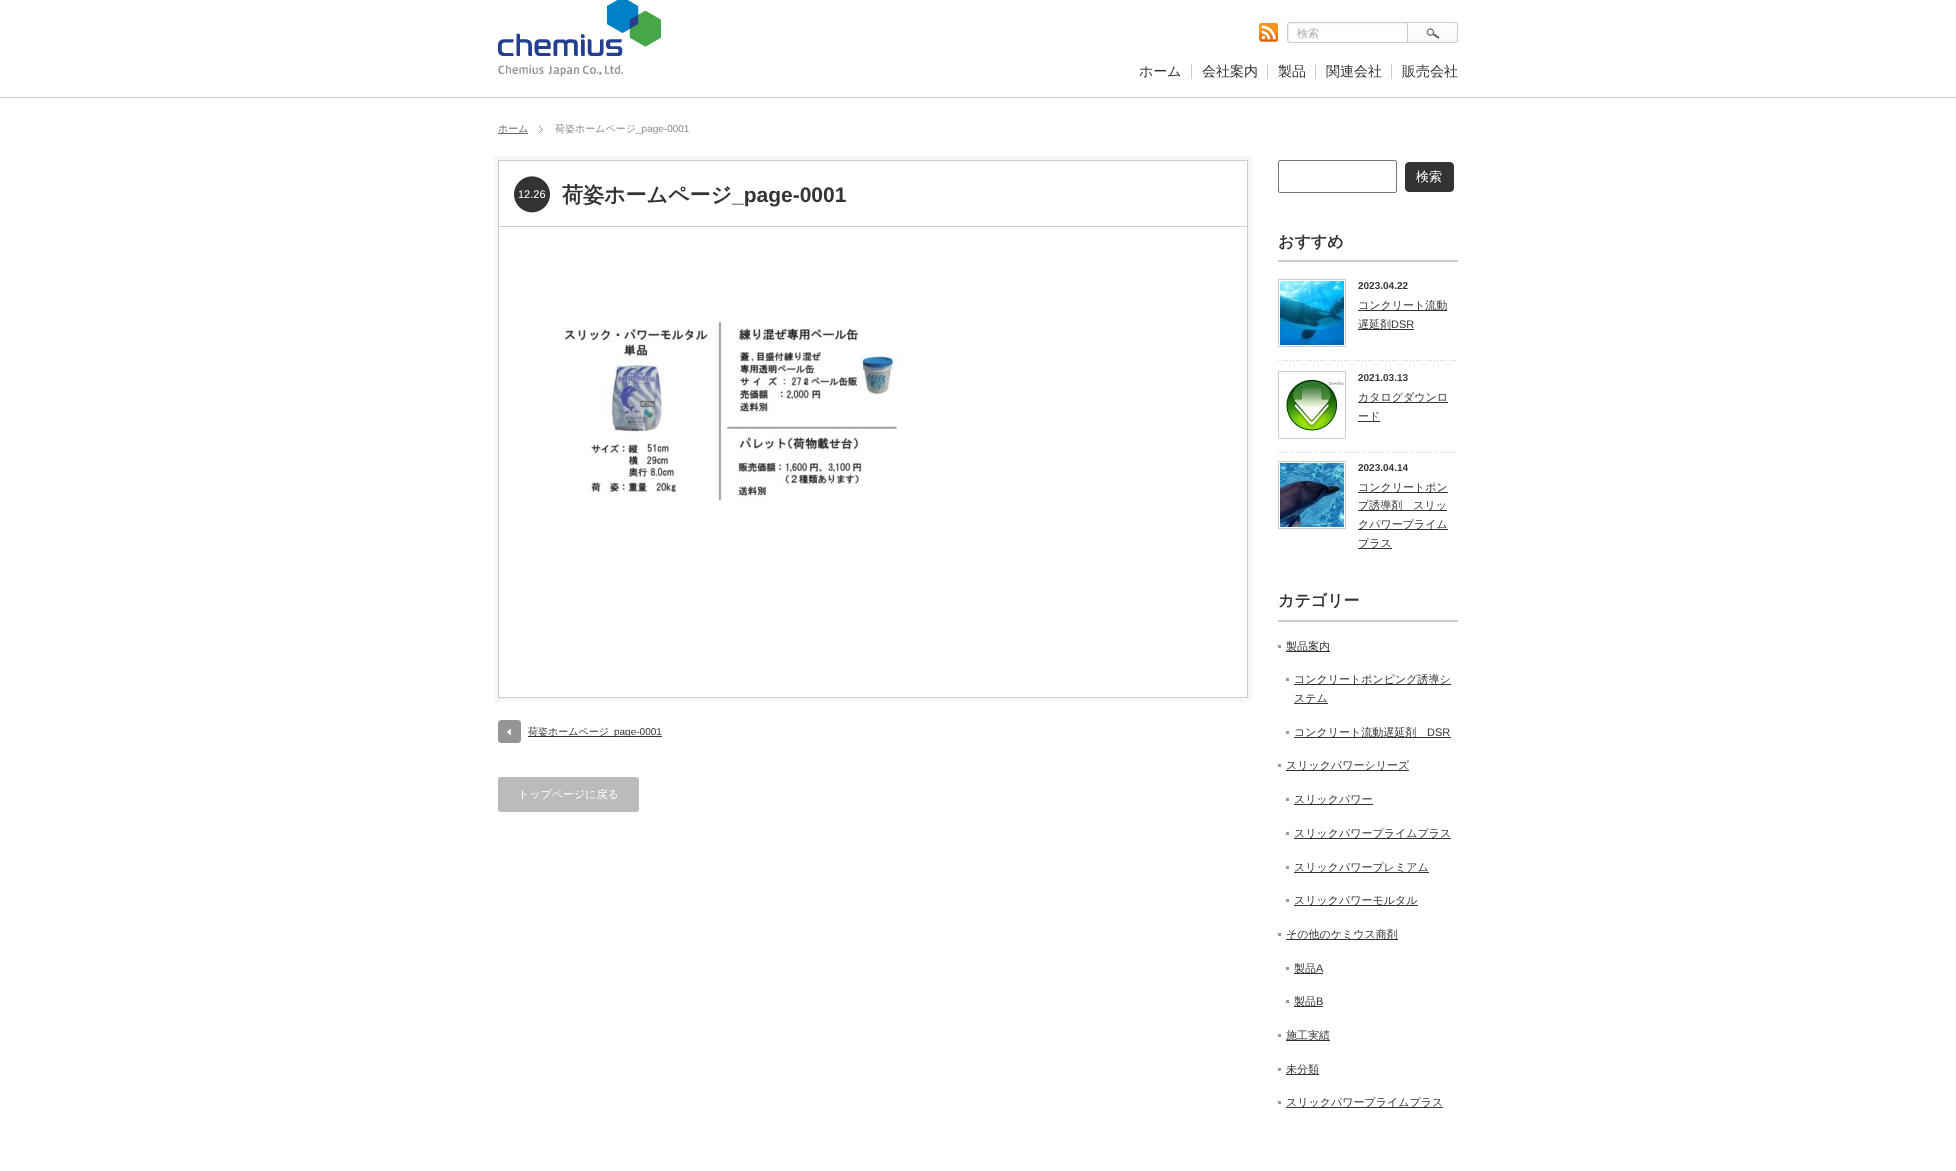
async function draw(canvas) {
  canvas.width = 1956;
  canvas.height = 1171;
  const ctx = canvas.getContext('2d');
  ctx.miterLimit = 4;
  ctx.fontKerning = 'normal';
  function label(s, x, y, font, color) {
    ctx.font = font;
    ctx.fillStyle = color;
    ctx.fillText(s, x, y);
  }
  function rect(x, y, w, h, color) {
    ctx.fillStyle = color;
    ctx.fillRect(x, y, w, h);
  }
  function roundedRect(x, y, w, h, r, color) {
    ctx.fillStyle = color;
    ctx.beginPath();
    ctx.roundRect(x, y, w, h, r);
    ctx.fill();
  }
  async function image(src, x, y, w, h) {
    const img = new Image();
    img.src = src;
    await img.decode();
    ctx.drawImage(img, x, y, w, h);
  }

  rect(0, 0, 1956, 1171, '#fff');
  rect(0, 97, 1956, 1, '#ccc');
  await image('assets/img1.png', 498, 0, 163, 77);
  await image('assets/img2.png', 1259, 23, 19, 19);
  await image('assets/img3.png', 1287, 22, 120, 21);
  label('検索', 1297, 37, '500 11px WenQuanYi Zen Hei', '#aaa');
  await image('assets/img4.png', 1407, 22, 51, 21);
  label('ホーム', 1139, 76, '500 14px WenQuanYi Zen Hei', '#333');
  rect(1191, 64, 1, 15, '#ccc');
  label('会社案内', 1202, 76, '500 14px WenQuanYi Zen Hei', '#333');
  rect(1267, 64, 1, 15, '#ccc');
  label('製品', 1278, 76, '500 14px WenQuanYi Zen Hei', '#333');
  rect(1315, 64, 1, 15, '#ccc');
  label('関連会社', 1326, 76, '500 14px WenQuanYi Zen Hei', '#333');
  rect(1391, 64, 1, 15, '#ccc');
  label('販売会社', 1402, 76, '500 14px WenQuanYi Zen Hei', '#333');
  await image('assets/img5.png', 539, 126, 4, 7);
  label('ホーム', 498, 132, '500 10px WenQuanYi Zen Hei', '#666');
  rect(498, 133, 30, 1, '#666');
  label('荷姿ホームページ', 555, 132, '500 10px WenQuanYi Zen Hei', '#888');
  label('_page-0001', 636, 132, '10px Liberation Sans', '#888');
  ctx.strokeStyle = '#f7f7f7';
  ctx.lineWidth = 4;
  ctx.strokeRect(496, 158, 754, 542);
  ctx.strokeStyle = '#ccc';
  ctx.lineWidth = 1;
  ctx.strokeRect(498.5, 160.5, 749, 537);
  rect(499, 226, 748, 1, '#ccc');
  await image('assets/img6.png', 514, 176, 36, 37);
  label('12.26', 518, 198, '11px Liberation Sans', '#fff');
  label('荷姿ホームページ', 562, 202, 'bold 21px WenQuanYi Zen Hei', '#333');
  label('_page-0001', 732, 202, 'bold 21px Liberation Sans', '#333');
  await image('assets/img7.png', 559, 321, 344, 182);
  await image('assets/img8.png', 498, 720, 23, 23);
  rect(528, 736, 134, 1, '#333');
  label('荷姿ホームページ', 528, 735, '500 10px WenQuanYi Zen Hei', '#333');
  label('page-0001', 614, 735, '10px Liberation Sans', '#333');
  roundedRect(498, 777, 141, 35, 3, '#bbb');
  label('トップページに戻る', 518, 798, '500 11px WenQuanYi Zen Hei', '#fff');
  ctx.beginPath();
  ctx.roundRect(1278.5, 160.5, 118, 32, 1.5);
  ctx.strokeStyle = '#767676';
  ctx.stroke();
  ctx.fillStyle = '#333';
  ctx.beginPath();
  ctx.roundRect(1405.5, 162.5, 48, 29, 3.5);
  ctx.fill();
  ctx.strokeStyle = '#333';
  ctx.stroke();
  label('検索', 1416, 181, '500 13px WenQuanYi Zen Hei', '#fff');
  rect(1278, 260, 180, 2, '#ccc');
  label('おすすめ', 1278, 247, 'bold 16px WenQuanYi Zen Hei', '#333');
  await image('assets/img9.png', 1278, 360, 178, 1);
  ctx.strokeStyle = '#ccc';
  ctx.strokeRect(1278.5, 279.5, 67, 67);
  await image('assets/img10.png', 1280, 281, 64, 64);
  label('2023.04.22', 1358, 289, 'bold 10px Liberation Sans', '#333');
  rect(1358, 310, 89, 1, '#333');
  label('コンクリート流動', 1358, 309, '500 11px WenQuanYi Zen Hei', '#333');
  rect(1358, 329, 56, 1, '#333');
  label('遅延剤', 1358, 328, '500 11px WenQuanYi Zen Hei', '#333');
  label('DSR', 1391, 328, '11px Liberation Sans', '#333');
  await image('assets/img9.png', 1278, 452, 178, 1);
  ctx.strokeRect(1278.5, 371.5, 67, 67);
  await image('assets/img11.png', 1280, 373, 64, 64);
  label('2021.03.13', 1358, 381, 'bold 10px Liberation Sans', '#333');
  rect(1358, 402, 90, 1, '#333');
  label('カタログダウンロ', 1358, 401, '500 11px WenQuanYi Zen Hei', '#333');
  rect(1358, 421, 22, 1, '#333');
  label('ード', 1358, 420, '500 11px WenQuanYi Zen Hei', '#333');
  ctx.strokeRect(1278.5, 461.5, 67, 67);
  await image('assets/img12.png', 1280, 463, 64, 64);
  label('2023.04.14', 1358, 471, 'bold 10px Liberation Sans', '#333');
  rect(1358, 492, 90, 1, '#333');
  label('コンクリートポン', 1358, 491, '500 11px WenQuanYi Zen Hei', '#333');
  rect(1358, 510, 89, 1, '#333');
  label('プ誘導剤　スリッ', 1358, 509, '500 11px WenQuanYi Zen Hei', '#333');
  rect(1358, 529, 90, 1, '#333');
  label('クパワープライム', 1358, 528, '500 11px WenQuanYi Zen Hei', '#333');
  rect(1358, 548, 34, 1, '#333');
  label('プラス', 1358, 547, '500 11px WenQuanYi Zen Hei', '#333');
  rect(1278, 620, 180, 2, '#ccc');
  label('カテゴリー', 1278, 606, 'bold 16px WenQuanYi Zen Hei', '#333');
  rect(1278, 645, 3, 3, '#999');
  rect(1286, 651, 44, 1, '#333');
  label('製品案内', 1286, 650, '500 11px WenQuanYi Zen Hei', '#333');
  rect(1286, 678, 3, 3, '#999');
  rect(1294, 684, 157, 1, '#333');
  label('コンクリートポンピング誘導シ', 1294, 683, '500 11px WenQuanYi Zen Hei', '#333');
  rect(1294, 703, 34, 1, '#333');
  label('ステム', 1294, 702, '500 11px WenQuanYi Zen Hei', '#333');
  rect(1286, 731, 3, 3, '#999');
  rect(1294, 737, 157, 1, '#333');
  label('コンクリート流動遅延剤', 1294, 736, '500 11px WenQuanYi Zen Hei', '#333');
  label('DSR', 1427, 736, '11px Liberation Sans', '#333');
  rect(1278, 764, 3, 3, '#999');
  rect(1286, 770, 123, 1, '#333');
  label('スリックパワーシリーズ', 1286, 769, '500 11px WenQuanYi Zen Hei', '#333');
  rect(1286, 798, 3, 3, '#999');
  rect(1294, 804, 79, 1, '#333');
  label('スリックパワー', 1294, 803, '500 11px WenQuanYi Zen Hei', '#333');
  rect(1286, 832, 3, 3, '#999');
  rect(1294, 838, 157, 1, '#333');
  label('スリックパワープライムプラス', 1294, 837, '500 11px WenQuanYi Zen Hei', '#333');
  rect(1286, 866, 3, 3, '#999');
  rect(1294, 872, 135, 1, '#333');
  label('スリックパワープレミアム', 1294, 871, '500 11px WenQuanYi Zen Hei', '#333');
  rect(1286, 899, 3, 3, '#999');
  rect(1294, 905, 124, 1, '#333');
  label('スリックパワーモルタル', 1294, 904, '500 11px WenQuanYi Zen Hei', '#333');
  rect(1278, 933, 3, 3, '#999');
  rect(1286, 939, 112, 1, '#333');
  label('その他のケミウス商剤', 1286, 938, '500 11px WenQuanYi Zen Hei', '#333');
  rect(1286, 967, 3, 3, '#999');
  rect(1294, 973, 29, 1, '#333');
  label('製品', 1294, 972, '500 11px WenQuanYi Zen Hei', '#333');
  label('A', 1316, 972, '11px Liberation Sans', '#333');
  rect(1286, 1000, 3, 3, '#999');
  rect(1294, 1006, 29, 1, '#333');
  label('製品', 1294, 1005, '500 11px WenQuanYi Zen Hei', '#333');
  label('B', 1316, 1005, '11px Liberation Sans', '#333');
  rect(1278, 1034, 3, 3, '#999');
  rect(1286, 1040, 44, 1, '#333');
  label('施工実績', 1286, 1039, '500 11px WenQuanYi Zen Hei', '#333');
  rect(1278, 1068, 3, 3, '#999');
  rect(1286, 1074, 33, 1, '#333');
  label('未分類', 1286, 1073, '500 11px WenQuanYi Zen Hei', '#333');
  rect(1278, 1101, 3, 3, '#999');
  rect(1286, 1107, 157, 1, '#333');
  label('スリックパワープライムプラス', 1286, 1106, '500 11px WenQuanYi Zen Hei', '#333');
}

draw(document.querySelector('canvas'));
